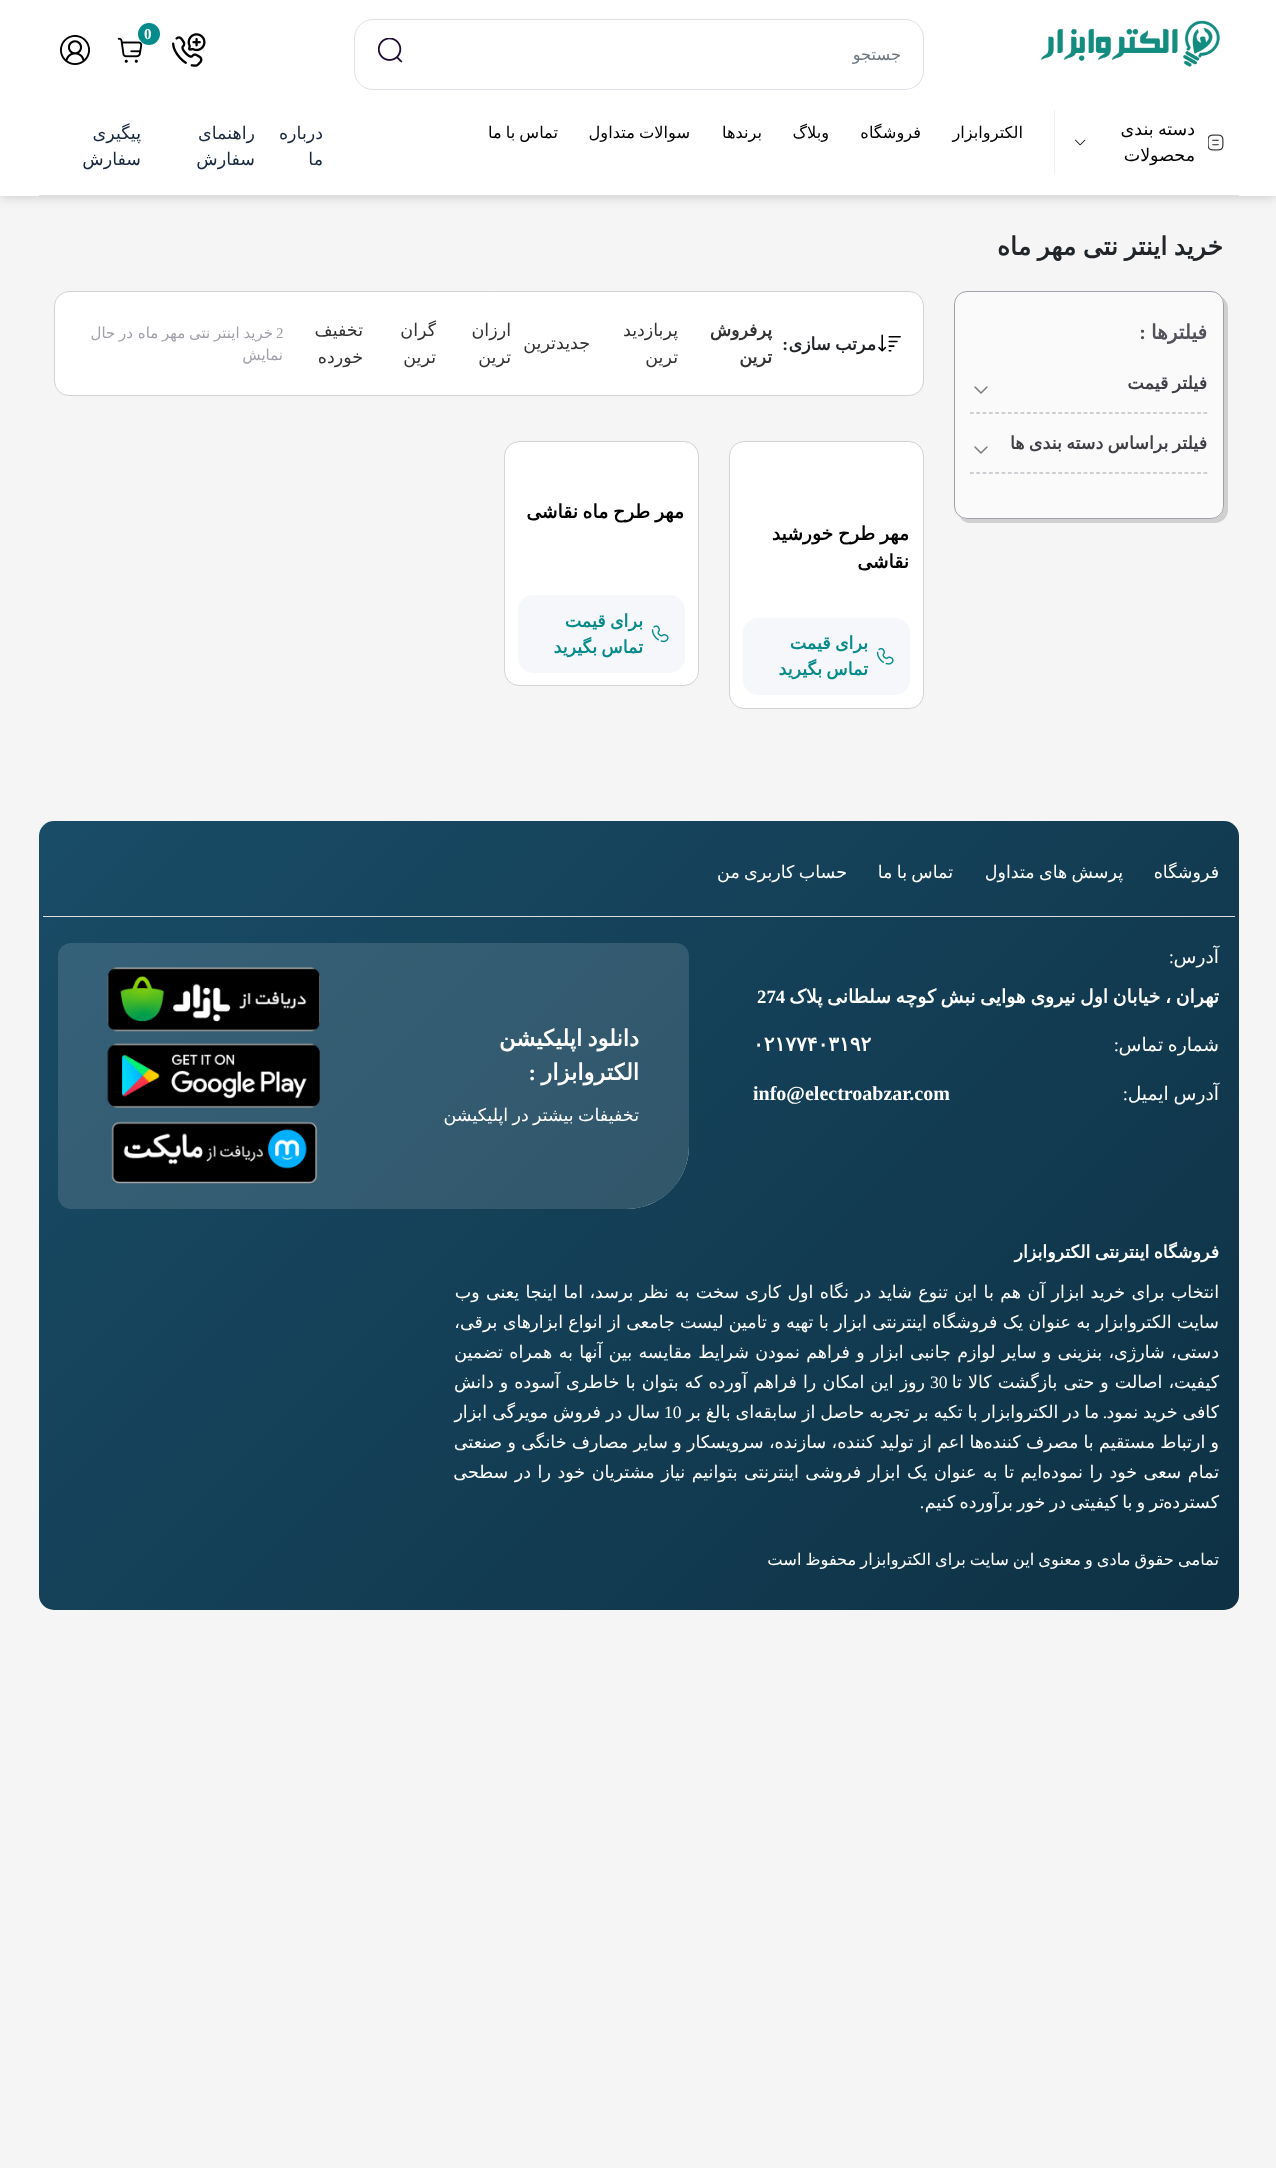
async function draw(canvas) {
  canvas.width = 1276;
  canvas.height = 2168;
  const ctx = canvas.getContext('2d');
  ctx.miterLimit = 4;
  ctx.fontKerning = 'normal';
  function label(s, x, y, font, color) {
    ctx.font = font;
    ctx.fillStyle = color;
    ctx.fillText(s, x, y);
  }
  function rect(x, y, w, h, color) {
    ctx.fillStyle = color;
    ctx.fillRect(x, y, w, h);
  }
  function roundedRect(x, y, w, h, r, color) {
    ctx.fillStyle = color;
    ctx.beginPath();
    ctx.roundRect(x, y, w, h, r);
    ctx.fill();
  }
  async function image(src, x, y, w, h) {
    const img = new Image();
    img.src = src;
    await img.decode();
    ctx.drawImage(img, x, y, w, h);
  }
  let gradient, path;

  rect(0, 0, 1276, 2168, '#f5f5f5');
  ctx.fillStyle = '#00000033';
  ctx.filter = 'blur(6px)';
  ctx.beginPath();
  ctx.rect(0, 0, 1276, 196);
  ctx.fill();
  ctx.filter = 'none';
  rect(0, 0, 1276, 196, '#fff');
  await image('assets/img1.png', 1040, 20, 180, 47);
  await image('assets/img2.png', 172, 33, 34, 34);
  await image('assets/img3.png', 117, 37, 26, 26);
  ctx.fillStyle = '#058b8b';
  ctx.beginPath();
  ctx.arc(149, 34, 11, 0, 2 * Math.PI);
  ctx.fill();
  label('0', 144, 39, 'bold 15px Liberation Serif', '#fff');
  await image('assets/img4.png', 60, 35, 30, 30);
  ctx.beginPath();
  ctx.roundRect(354.5, 19.5, 569, 70, 18.5);
  ctx.strokeStyle = '#dee2e6';
  ctx.stroke();
  ctx.direction = 'rtl';
  label('جستجو', 901, 60, '16.25px DejaVu Sans', '#6c757d');
  await image('assets/img5.png', 378, 38, 25, 25);
  rect(39, 195, 1200, 1, '#dee2e6');
  rect(1054, 110, 1, 65, '#eee');
  ctx.wordSpacing = '-1.25px';
  label('دسته بندی', 1195, 135, '17.5px DejaVu Sans', '#000');
  await image('assets/img6.png', 1208, 134, 16, 17);
  await image('assets/img7.png', 1075, 139, 11, 7);
  ctx.wordSpacing = '0px';
  label('محصولات', 1195, 161, '17.5px DejaVu Sans', '#000');
  label('الکتروابزار', 1023, 138, '16.25px DejaVu Sans', '#000');
  label('فروشگاه', 921, 138, '16.25px DejaVu Sans', '#000');
  label('وبلاگ', 829, 138, '16.25px DejaVu Sans', '#000');
  label('برندها', 762, 138, '16.25px DejaVu Sans', '#000');
  ctx.wordSpacing = '-1.1px';
  label('سوالات متداول', 690, 138, '16.25px DejaVu Sans', '#000');
  label('تماس با ما', 558, 138, '16.25px DejaVu Sans', '#000');
  ctx.wordSpacing = '0px';
  label('درباره', 323, 139, '17.5px DejaVu Sans', '#18293f');
  label('ما', 323, 165, '17.5px DejaVu Sans', '#18293f');
  label('راهنمای', 255, 139, '17.5px DejaVu Sans', '#18293f');
  label('سفارش', 255, 165, '17.5px DejaVu Sans', '#18293f');
  label('پیگیری', 141, 139, '17.5px DejaVu Sans', '#18293f');
  label('سفارش', 141, 165, '17.5px DejaVu Sans', '#18293f');
  ctx.wordSpacing = '-1.5px';
  label('خرید اینتر نتی مهر ماه', 1223, 255, 'bold 25px DejaVu Sans', '#212529');
  ctx.fillStyle = '#d0d0d0';
  path = new Path2D('M960 517C962 521 966 523 971 523H1215C1222 523 1228 517 1228 510V308C1228 303 1225 299 1222 297C1223 299 1224 301 1224 304V506C1224 513 1218 519 1211 519H966C964 519 962 518 960 517Z');
  ctx.fill(path);
  ctx.fillStyle = '#fafafa';
  ctx.beginPath();
  ctx.roundRect(954.5, 291.5, 269, 227, 12.5);
  ctx.fill();
  ctx.strokeStyle = '#a1a1aa';
  ctx.stroke();
  ctx.wordSpacing = '0px';
  label('فیلترها', 1207, 339, 'bold 20px DejaVu Sans', '#52525b');
  label(':', 1146, 339, 'bold 20px Liberation Serif', '#52525b');
  path = new Path2D('M970 413H1207.5');
  ctx.lineWidth = 1.2;
  ctx.setLineDash([3.75, 2.56]);
  ctx.stroke(path);
  ctx.wordSpacing = '-1.25px';
  label('فیلتر قیمت', 1207, 389, 'bold 17.5px DejaVu Sans', '#3f3f46');
  path = new Path2D('M987 387L981 393L975 387');
  ctx.strokeStyle = '#7d7d7d';
  ctx.lineWidth = 1.5;
  ctx.lineCap = 'round';
  ctx.lineJoin = 'round';
  ctx.setLineDash([]);
  ctx.stroke(path);
  path = new Path2D('M970 473H1207.5');
  ctx.strokeStyle = '#a1a1aa';
  ctx.lineWidth = 1.2;
  ctx.lineCap = 'butt';
  ctx.lineJoin = 'miter';
  ctx.setLineDash([3.75, 2.56]);
  ctx.stroke(path);
  label('فیلتر براساس دسته بندی ها', 1207, 449, 'bold 17.5px DejaVu Sans', '#3f3f46');
  path = new Path2D('M987 447L981 453L975 447');
  ctx.strokeStyle = '#7d7d7d';
  ctx.lineWidth = 1.5;
  ctx.lineCap = 'round';
  ctx.lineJoin = 'round';
  ctx.setLineDash([]);
  ctx.stroke(path);
  ctx.fillStyle = '#fff';
  ctx.beginPath();
  ctx.roundRect(54.5, 291.5, 869, 104, 14.5);
  ctx.fill();
  ctx.strokeStyle = '#d3d3d3';
  ctx.lineWidth = 1;
  ctx.lineJoin = 'miter';
  ctx.stroke();
  await image('assets/img8.png', 878, 334, 23, 18);
  label('مرتب سازی', 876, 350, 'bold 17.5px DejaVu Sans', '#212529');
  ctx.wordSpacing = '0px';
  label(':', 788, 350, 'bold 17.5px Liberation Serif', '#212529');
  label('پرفروش', 772, 336, 'bold 17.5px DejaVu Sans', '#333');
  label('ترین', 772, 363, 'bold 17.5px DejaVu Sans', '#333');
  label('پربازدید', 678, 336, '17.5px DejaVu Sans', '#333');
  label('ترین', 678, 363, '17.5px DejaVu Sans', '#333');
  label('جدیدترین', 590, 349, '17.5px DejaVu Sans', '#333');
  label('ارزان', 511, 336, '17.5px DejaVu Sans', '#333');
  label('ترین', 511, 363, '17.5px DejaVu Sans', '#333');
  label('گران', 436, 336, '17.5px DejaVu Sans', '#333');
  label('ترین', 436, 363, '17.5px DejaVu Sans', '#333');
  label('تخفیف', 363, 336, '17.5px DejaVu Sans', '#333');
  label('خورده', 363, 363, '17.5px DejaVu Sans', '#333');
  ctx.direction = 'ltr';
  label('2', 276, 338, '15px Liberation Serif', '#a1a1aa');
  ctx.wordSpacing = '-1px';
  ctx.direction = 'rtl';
  label('خرید اینتر نتی مهر ماه', 273, 338, '15px DejaVu Sans', '#a1a1aa');
  label('در حال', 133, 338, '15px DejaVu Sans', '#a1a1aa');
  ctx.wordSpacing = '0px';
  label('نمایش', 283, 360, '15px DejaVu Sans', '#a1a1aa');
  ctx.fillStyle = '#fff';
  ctx.beginPath();
  ctx.roundRect(729.5, 441.5, 194, 267, 14.5);
  ctx.fill();
  ctx.stroke();
  ctx.wordSpacing = '-1.25px';
  label('مهر طرح خورشید', 909, 540, 'bold 18.75px DejaVu Sans', '#000');
  ctx.wordSpacing = '0px';
  label('نقاشی', 909, 568, 'bold 18.75px DejaVu Sans', '#000');
  roundedRect(743, 618, 167, 77, 15, '#f5f7fb');
  await image('assets/img9.png', 876, 647, 18, 18);
  ctx.wordSpacing = '-1.25px';
  label('برای قیمت', 868, 649, 'bold 17.5px DejaVu Sans', '#058b8b');
  label('تماس بگیرید', 868, 675, 'bold 17.5px DejaVu Sans', '#058b8b');
  ctx.fillStyle = '#fff';
  ctx.beginPath();
  ctx.roundRect(504.5, 441.5, 194, 244, 14.5);
  ctx.fill();
  ctx.stroke();
  label('مهر طرح ماه نقاشی', 684, 518, 'bold 18.75px DejaVu Sans', '#000');
  roundedRect(518, 595, 167, 78, 15, '#f5f7fb');
  await image('assets/img10.png', 651, 625, 18, 18);
  label('برای قیمت', 643, 627, 'bold 17.5px DejaVu Sans', '#058b8b');
  label('تماس بگیرید', 643, 653, 'bold 17.5px DejaVu Sans', '#058b8b');
  gradient = ctx.createLinearGradient(142, 718, 1136, 1713);
  gradient.addColorStop(0, '#194c67');
  gradient.addColorStop(1, '#0e3144');
  ctx.fillStyle = gradient;
  ctx.beginPath();
  ctx.roundRect(39, 821, 1200, 789, 15);
  ctx.fill();
  rect(43, 916, 1192, 1, '#ddd');
  ctx.wordSpacing = '0px';
  label('فروشگاه', 1219, 878, '17.5px DejaVu Sans', '#fff');
  ctx.wordSpacing = '-1.25px';
  label('پرسش های متداول', 1123, 878, '17.5px DejaVu Sans', '#fff');
  label('تماس با ما', 953, 878, '17.5px DejaVu Sans', '#fff');
  label('حساب کاربری من', 847, 878, '17.5px DejaVu Sans', '#fff');
  ctx.wordSpacing = '0px';
  label('آدرس', 1219, 963, '18.75px DejaVu Sans', '#fff');
  label(':', 1174, 963, '18.75px Liberation Serif', '#fff');
  ctx.wordSpacing = '-1.25px';
  label('تهران ، خیابان اول نیروی هوایی نبش کوچه سلطانی پلاک', 1219, 1003, 'bold 18.75px DejaVu Sans', '#fff');
  ctx.wordSpacing = '0px';
  ctx.direction = 'ltr';
  label('274', 757, 1003, 'bold 18.75px Liberation Serif', '#fff');
  ctx.wordSpacing = '-1.25px';
  ctx.direction = 'rtl';
  label('شماره تماس', 1219, 1051, '18.75px DejaVu Sans', '#fff');
  ctx.wordSpacing = '0px';
  label(':', 1119, 1051, '18.75px Liberation Serif', '#fff');
  ctx.direction = 'ltr';
  label('۰۲۱۷۷۴۰۳۱۹۲', 753, 1051, 'bold 20px DejaVu Sans', '#fff');
  ctx.wordSpacing = '-1.25px';
  ctx.direction = 'rtl';
  label('آدرس ایمیل', 1219, 1100, '18.75px DejaVu Sans', '#fff');
  ctx.wordSpacing = '0px';
  label(':', 1128, 1100, '18.75px Liberation Serif', '#fff');
  ctx.direction = 'ltr';
  label('info@electroabzar.com', 753, 1100, 'bold 20px Liberation Serif', '#fff');
  ctx.save();
  path = new Path2D('M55 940H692V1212H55ZM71 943H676C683 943 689 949 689 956V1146C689 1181 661 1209 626 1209H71C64 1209 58 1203 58 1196V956C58 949 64 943 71 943Z');
  ctx.clip(path, 'evenodd');
  ctx.filter = 'blur(0.5px)';
  ctx.beginPath();
  ctx.roundRect(58, 943, 631, 266, 63);
  ctx.fill();
  ctx.filter = 'none';
  ctx.restore();
  ctx.fillStyle = '#ffffff21';
  ctx.beginPath();
  ctx.roundRect(58, 943, 631, 266, [13, 13, 63, 13]);
  ctx.fill();
  ctx.wordSpacing = '-2px';
  ctx.direction = 'rtl';
  label('دانلود اپلیکیشن', 639, 1046, 'bold 22.5px DejaVu Sans', '#fff');
  ctx.wordSpacing = '0px';
  label('الکتروابزار', 639, 1080, 'bold 22.5px DejaVu Sans', '#fff');
  label(':', 536, 1080, 'bold 22.5px Liberation Serif', '#fff');
  ctx.wordSpacing = '-1.25px';
  label('تخفیفات بیشتر در اپلیکیشن', 639, 1121, '17.5px DejaVu Sans', '#fff');
  await image('assets/img11.png', 107, 967, 213, 65);
  await image('assets/img12.png', 107, 1043, 213, 65);
  await image('assets/img13.png', 111, 1121, 207, 63);
  label('فروشگاه اینترنتی الکتروابزار', 1219, 1258, 'bold 17.5px DejaVu Sans', '#fff');
  ctx.wordSpacing = '0.8px';
  label('انتخاب برای خرید ابزار آن هم با این تنوع شاید در نگاه اول کاری سخت به نظر برسد، اما اینجا یعنی وب', 1219, 1298, '17.5px DejaVu Sans', '#fff');
  ctx.wordSpacing = '-0.3px';
  label('های برقی،', 531, 1328, '17.5px DejaVu Sans', '#fff');
  label('سایت الکتروابزار به عنوان یک فروشگاه اینترنتی ابزار با تهیه و تامین لیست جامعی از انواع ابزار', 1219, 1328, '17.5px DejaVu Sans', '#fff');
  ctx.wordSpacing = '0.75px';
  label('دستی، شارژی، بنزینی و سایر لوازم جانبی ابزار و فراهم نمودن شرایط مقایسه بین آنها به همراه تضمین', 1219, 1358, '17.5px DejaVu Sans', '#fff');
  ctx.wordSpacing = '0.5px';
  label('کیفیت، اصالت و حتی بازگشت کالا تا', 1219, 1388, '17.5px DejaVu Sans', '#fff');
  ctx.wordSpacing = '0px';
  ctx.direction = 'ltr';
  label('30', 930, 1388, '17.5px Liberation Serif', '#fff');
  ctx.wordSpacing = '0.5px';
  ctx.direction = 'rtl';
  label('روز این امکان را فراهم آورده که بتوان با خاطری آسوده و دانش', 925, 1388, '17.5px DejaVu Sans', '#fff');
  ctx.wordSpacing = '-0.75px';
  label('کافی خرید نمود', 1219, 1418, '17.5px DejaVu Sans', '#fff');
  label('ما در الکتروابزار با تکیه بر تجربه حاصل از سابقه', 1099, 1418, '17.5px DejaVu Sans', '#fff');
  ctx.wordSpacing = '0px';
  label('.', 1107, 1418, '17.5px Liberation Serif', '#fff');
  ctx.wordSpacing = '-0.75px';
  label('ای بالغ بر', 754, 1418, '17.5px DejaVu Sans', '#fff');
  ctx.wordSpacing = '0px';
  ctx.direction = 'ltr';
  label('10', 664, 1418, '17.5px Liberation Serif', '#fff');
  ctx.wordSpacing = '-0.5px';
  ctx.direction = 'rtl';
  label('سال در فروش مویرگی ابزار', 660, 1418, '17.5px DejaVu Sans', '#fff');
  ctx.wordSpacing = '-0.3px';
  label('ها اعم از تولید کننده، سازنده، سرویسکار و سایر مصارف خانگی و صنعتی', 984, 1448, '17.5px DejaVu Sans', '#fff');
  label('و ارتباط مستقیم با مصرف کننده', 1219, 1448, '17.5px DejaVu Sans', '#fff');
  ctx.wordSpacing = '1px';
  label('تمام سعی خود را نموده', 1219, 1478, '17.5px DejaVu Sans', '#fff');
  label('ایم تا به عنوان یک ابزار فروشی اینترنتی بتوانیم نیاز مشتریان خود را در سطحی', 1042, 1478, '17.5px DejaVu Sans', '#fff');
  ctx.wordSpacing = '-1.25px';
  label('تر و با کیفیتی در خور برآورده کنیم', 1164, 1508, '17.5px DejaVu Sans', '#fff');
  ctx.wordSpacing = '0px';
  label('کسترده', 1219, 1508, '17.5px DejaVu Sans', '#fff');
  label('.', 924, 1508, '17.5px Liberation Serif', '#fff');
  ctx.wordSpacing = '-1.1px';
  label('تمامی حقوق مادی و معنوی این سایت برای الکتروابزار محفوظ است', 1219, 1565, '16.25px DejaVu Sans', '#fff');
}

draw(document.querySelector('canvas'));
